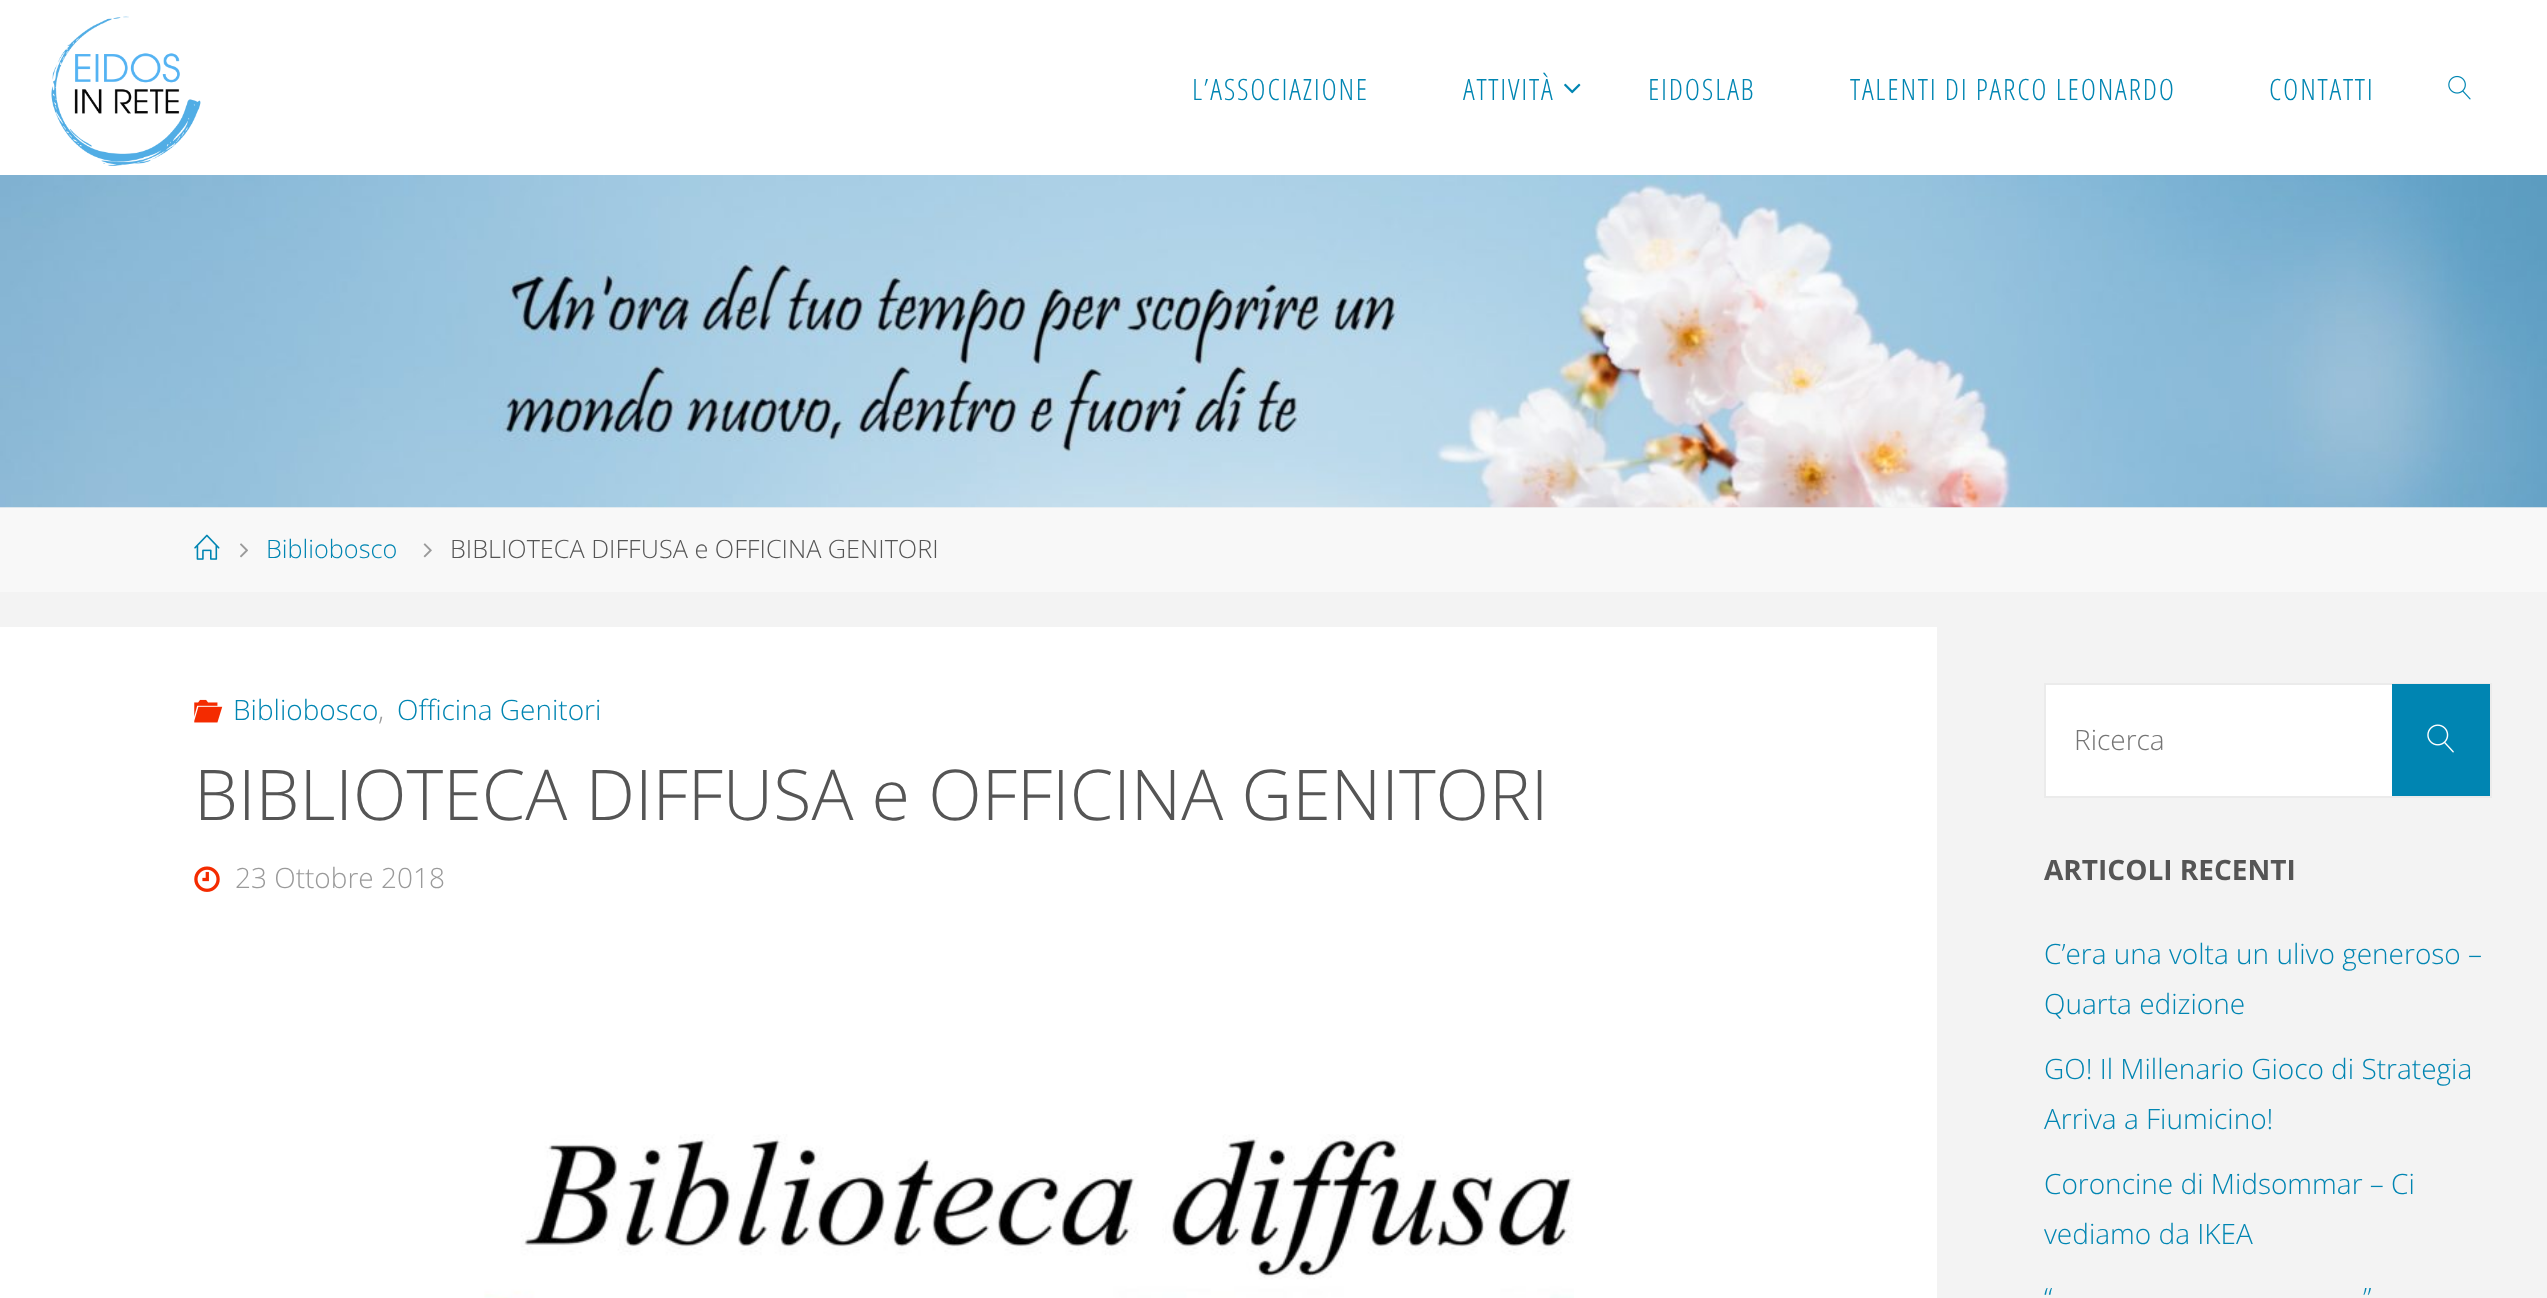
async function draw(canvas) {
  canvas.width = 2547;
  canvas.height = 1298;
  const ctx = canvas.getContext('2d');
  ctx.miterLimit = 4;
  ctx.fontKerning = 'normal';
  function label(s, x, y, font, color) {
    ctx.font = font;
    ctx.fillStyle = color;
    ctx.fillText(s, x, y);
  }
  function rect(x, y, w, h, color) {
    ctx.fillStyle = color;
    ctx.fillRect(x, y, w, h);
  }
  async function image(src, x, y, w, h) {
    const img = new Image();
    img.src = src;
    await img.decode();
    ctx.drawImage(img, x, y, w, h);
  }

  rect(0, 0, 2547, 1298, '#f3f3f3');
  rect(0, 0, 2547, 175, '#fff');
  await image('assets/img1.png', 51, 16, 150, 150);
  ctx.letterSpacing = '1.75px';
  label('L’ASSOCIAZIONE', 1192, 100, '300 29.4px Open Sans Condensed', '#0085b2');
  label('ATTIVITÀ', 1463, 100, '300 29.4px Open Sans Condensed', '#0085b2');
  await image('assets/img2.png', 1564, 83, 17, 11);
  label('EIDOSLAB', 1648, 100, '300 29.4px Open Sans Condensed', '#0085b2');
  label('TALENTI DI PARCO LEONARDO', 1850, 100, '300 29.4px Open Sans Condensed', '#0085b2');
  label('CONTATTI', 2269, 100, '300 29.4px Open Sans Condensed', '#0085b2');
  await image('assets/img3.png', 2448, 75, 23, 25);
  await image('assets/img4.png', 0, 175, 2547, 333);
  rect(0, 508, 2547, 84, '#f8f8f8');
  await image('assets/img5.png', 194, 534, 26, 26);
  await image('assets/img6.png', 240, 543, 8, 15);
  ctx.letterSpacing = '0px';
  label('Bibliobosco', 266, 558, '300 25.25px Open Sans', '#0085b2');
  await image('assets/img7.png', 423, 543, 9, 15);
  label('BIBLIOTECA DIFFUSA e OFFICINA GENITORI', 450, 558, '300 25.25px Open Sans', '#555');
  rect(0, 627, 1937, 671, '#fff');
  await image('assets/img8.png', 194, 699, 29, 24);
  label('Bibliobosco', 233, 720, '300 28px Open Sans', '#0085b2');
  label(',', 378, 720, '300 28px Open Sans', '#9a9a9a');
  label('Officina Genitori', 397, 720, '300 28px Open Sans', '#0085b2');
  label('BIBLIOTECA DIFFUSA e OFFICINA GENITORI', 194, 820, '300 70px Open Sans', '#555');
  await image('assets/img9.png', 194, 866, 26, 26);
  label('23 Ottobre 2018', 235, 888, '300 28px Open Sans', '#9a9a9a');
  await image('assets/img10.png', 484, 1134, 1090, 164);
  rect(2046, 685, 346, 111, '#fff');
  ctx.strokeStyle = '#ebebeb';
  ctx.lineWidth = 2;
  ctx.strokeRect(2045, 684, 446, 113);
  rect(2392, 684, 98, 112, '#0085b2');
  label('Ricerca', 2074, 750, '300 28px Open Sans', '#757575');
  await image('assets/img11.png', 2427, 724, 27, 29);
  label('ARTICOLI RECENTI', 2044, 880, 'bold 28px Open Sans', '#555');
  label('C’era una volta un ulivo generoso –', 2044, 964, '300 28px Open Sans', '#0085b2');
  label('Quarta edizione', 2044, 1014, '300 28px Open Sans', '#0085b2');
  label('GO! Il Millenario Gioco di Strategia', 2044, 1079, '300 28px Open Sans', '#0085b2');
  label('Arriva a Fiumicino!', 2044, 1129, '300 28px Open Sans', '#0085b2');
  label('Coroncine di Midsommar – Ci', 2044, 1194, '300 28px Open Sans', '#0085b2');
  label('vediamo da IKEA', 2044, 1244, '300 28px Open Sans', '#0085b2');
  label('“', 2044, 1308, '300 28px Open Sans', '#0085b2');
  label('”', 2363, 1308, '300 28px Open Sans', '#0085b2');
}

draw(document.querySelector('canvas'));
